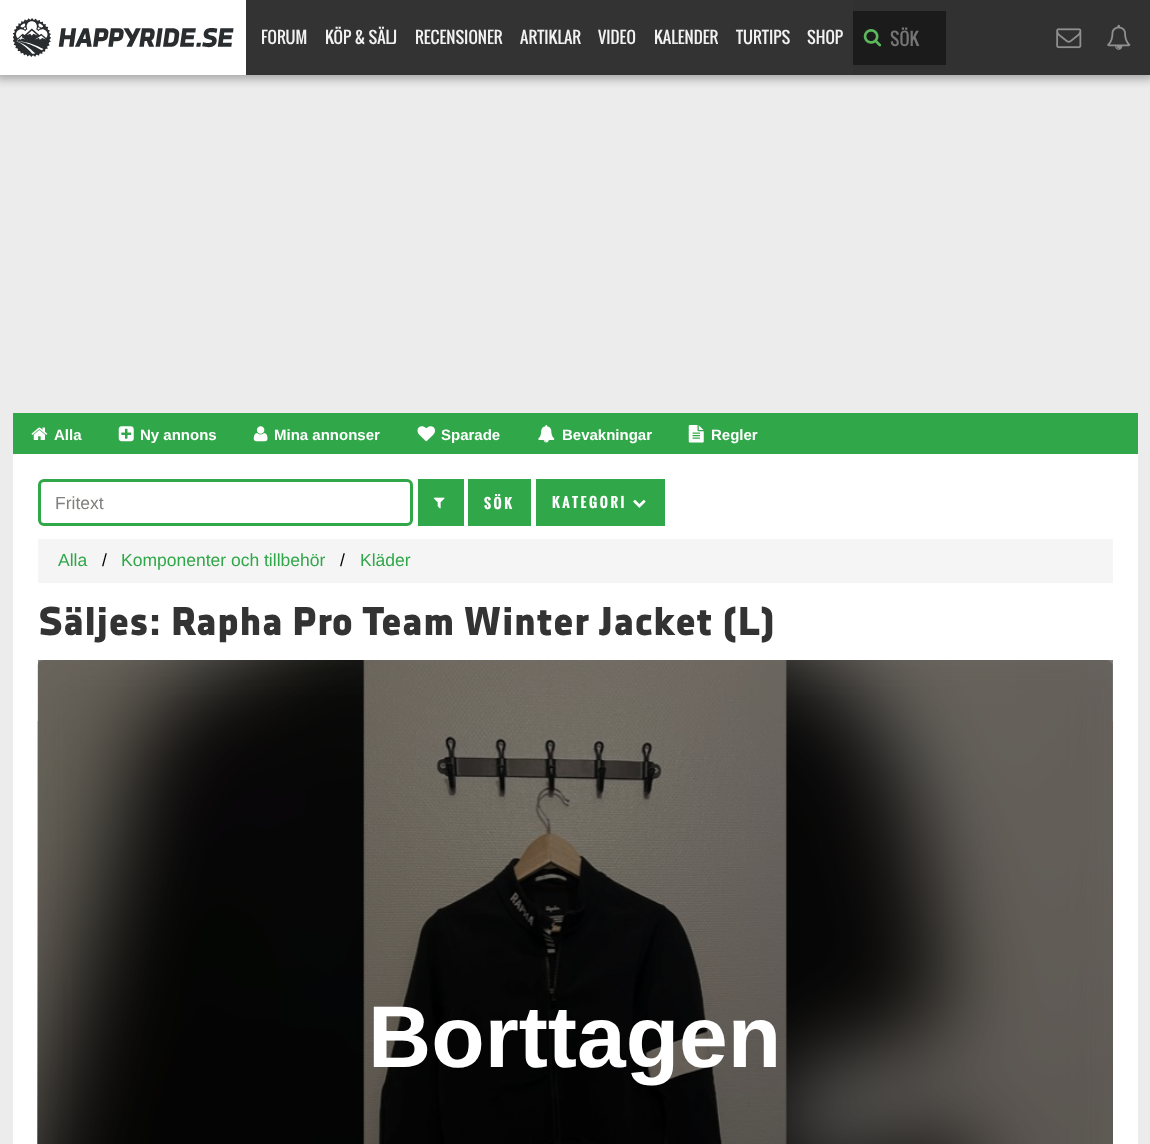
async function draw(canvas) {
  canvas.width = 1150;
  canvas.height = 1144;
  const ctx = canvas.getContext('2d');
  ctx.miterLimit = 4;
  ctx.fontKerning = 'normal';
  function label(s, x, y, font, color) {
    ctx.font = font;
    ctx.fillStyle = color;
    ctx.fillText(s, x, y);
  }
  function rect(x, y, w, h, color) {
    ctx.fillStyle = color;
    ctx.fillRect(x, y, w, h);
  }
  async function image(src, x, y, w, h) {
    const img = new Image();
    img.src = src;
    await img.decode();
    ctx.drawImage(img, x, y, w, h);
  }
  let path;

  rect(0, 0, 1150, 1144, '#ececec');
  ctx.fillStyle = '#0000004d';
  ctx.filter = 'blur(5px)';
  ctx.beginPath();
  ctx.rect(-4, -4, 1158, 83);
  ctx.fill();
  ctx.filter = 'none';
  rect(853, 0, 297, 75, '#313131');
  rect(0, 0, 246, 75, '#fff');
  await image('assets/img1.png', 13, 18, 221, 39);
  rect(246, 0, 607, 75, '#333');
  label('FORUM', 261, 44, '16.25px Oswald', '#f2f2f2');
  label('KÖP & SÄLJ', 325, 44, '16.25px Oswald', '#f2f2f2');
  label('RECENSIONER', 415, 44, '16.25px Oswald', '#f2f2f2');
  label('ARTIKLAR', 520, 44, '16.25px Oswald', '#f2f2f2');
  label('VIDEO', 598, 44, '16.25px Oswald', '#f2f2f2');
  label('KALENDER', 654, 44, '16.25px Oswald', '#f2f2f2');
  label('TURTIPS', 736, 44, '16.25px Oswald', '#f2f2f2');
  label('SHOP', 807, 44, '16.25px Oswald', '#f2f2f2');
  rect(853, 11, 93, 54, '#1b1b1b');
  await image('assets/img2.png', 863, 29, 19, 18);
  label('SÖK', 890, 46, '17.5px Oswald', '#757575');
  await image('assets/img3.png', 1056, 28, 26, 21);
  await image('assets/img4.png', 1107, 24, 24, 26);
  rect(13, 413, 1125, 41, '#30a749');
  await image('assets/img5.png', 31, 427, 17, 13);
  label('Alla', 54, 440, 'bold 15px Liberation Sans', '#fff');
  await image('assets/img6.png', 118, 426, 16, 16);
  label('Ny annons', 140, 440, 'bold 15px Liberation Sans', '#fff');
  await image('assets/img7.png', 253, 426, 15, 16);
  label('Mina annonser', 274, 440, 'bold 15px Liberation Sans', '#fff');
  await image('assets/img8.png', 417, 426, 18, 16);
  label('Sparade', 441, 440, 'bold 15px Liberation Sans', '#fff');
  await image('assets/img9.png', 538, 425, 17, 18);
  label('Bevakningar', 562, 440, 'bold 15px Liberation Sans', '#fff');
  await image('assets/img10.png', 688, 425, 16, 18);
  label('Regler', 711, 440, 'bold 15px Liberation Sans', '#fff');
  rect(13, 454, 1125, 690, '#fff');
  rect(38, 660, 1075, 6, '#808080');
  ctx.beginPath();
  ctx.roundRect(39.5, 480.5, 372, 44, 4.5);
  ctx.strokeStyle = '#30a749';
  ctx.lineWidth = 3;
  ctx.stroke();
  label('Fritext', 55, 509, '17.5px Liberation Sans', '#80807e');
  rect(418, 479, 46, 47, '#30a749');
  await image('assets/img11.png', 433, 497, 12, 12);
  rect(468, 479, 63, 47, '#30a749');
  ctx.letterSpacing = '2.5px';
  label('SÖK', 484, 509, 'bold 13.75px Oswald', '#fff');
  rect(536, 479, 129, 47, '#30a749');
  label('KATEGORI', 552, 508, 'bold 13.75px Oswald', '#fff');
  await image('assets/img12.png', 633, 499, 13, 9);
  rect(38, 539, 1075, 44, '#f5f5f5');
  ctx.letterSpacing = '0px';
  label('Alla', 58, 566, '17.5px Liberation Sans', '#30a749');
  label('/', 102, 566, '17.5px Liberation Sans', '#000');
  label('Komponenter och tillbehör', 121, 566, '17.5px Liberation Sans', '#30a749');
  label('/', 340, 566, '17.5px Liberation Sans', '#000');
  label('Kläder', 360, 566, '17.5px Liberation Sans', '#30a749');
  label('Säljes: Rapha Pro Team Winter Jacket (L)', 38, 635, '900 40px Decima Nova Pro', '#333');
  ctx.fillStyle = '#7d7c7b';
  path = new Path2D('M44 660H1107C1110.5 660 1113 662.5 1113 666V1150H38V666C38 662.5 40.5 660 44 660Z');
  ctx.fill(path);
  await image('assets/img13.png', 37, 660, 1076, 484);
  await image('assets/img14.png', 363, 660, 424, 484);
  label('Borttagen', 368, 1067, 'bold 87.5px Liberation Sans', '#fff');
}

draw(document.querySelector('canvas'));
